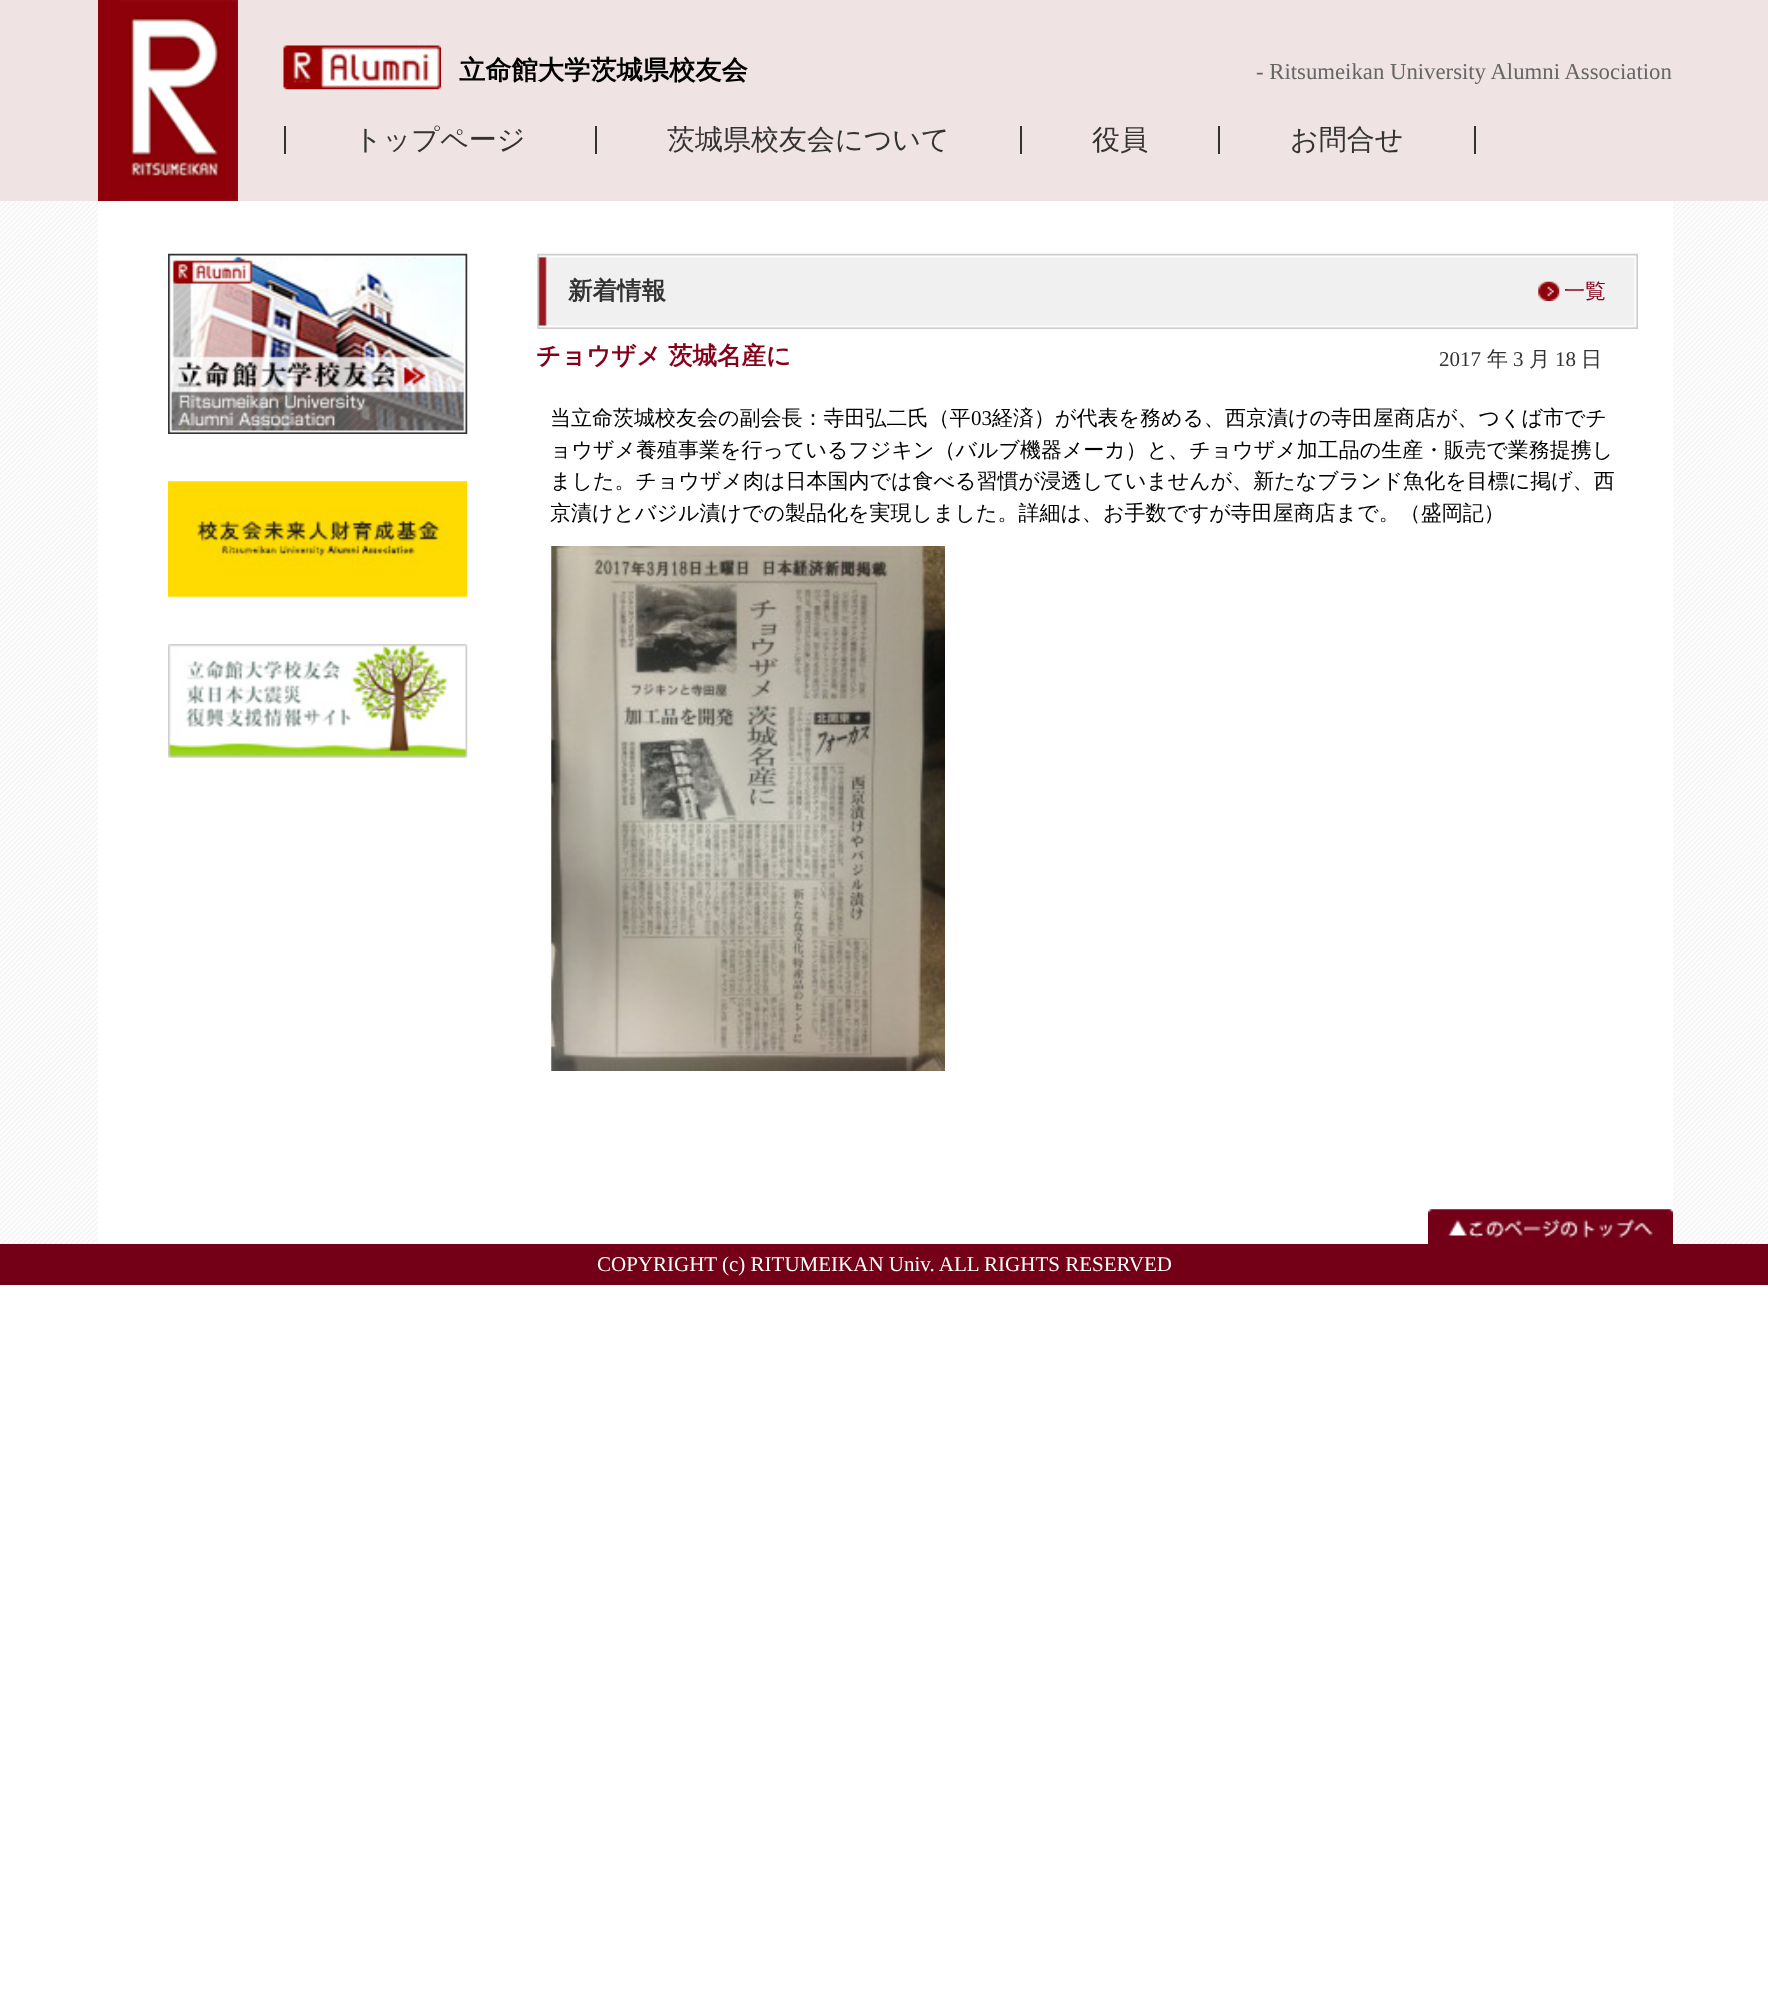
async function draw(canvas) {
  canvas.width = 1768;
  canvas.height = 1994;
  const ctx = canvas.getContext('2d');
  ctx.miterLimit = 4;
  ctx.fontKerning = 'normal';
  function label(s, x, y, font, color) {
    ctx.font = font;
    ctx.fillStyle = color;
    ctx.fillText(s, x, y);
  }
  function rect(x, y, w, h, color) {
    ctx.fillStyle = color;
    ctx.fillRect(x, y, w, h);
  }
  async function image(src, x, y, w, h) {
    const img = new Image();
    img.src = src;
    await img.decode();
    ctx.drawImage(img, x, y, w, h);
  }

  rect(0, 0, 1768, 1994, '#fff');
  await image('assets/img1.png', 0, 201, 1768, 1043);
  rect(0, 0, 1768, 201, '#efe3e4');
  await image('assets/img2.png', 98, 0, 140, 201);
  await image('assets/img3.png', 283, 45, 158, 45);
  label('立命館大学茨城県校友会', 459, 79, 'bold 26.25px WenQuanYi Zen Hei', '#000');
  label('- Ritsumeikan University Alumni Association', 1256, 79, '22.75px Liberation Serif', '#666');
  rect(595, 126, 2, 28, '#333');
  rect(284, 126, 2, 28, '#333');
  label('トップページ', 354, 149, '500 28px WenQuanYi Zen Hei', '#333');
  rect(1020, 126, 2, 28, '#333');
  label('茨城県校友会について', 667, 149, '500 28px WenQuanYi Zen Hei', '#333');
  rect(1218, 126, 2, 28, '#333');
  label('役員', 1092, 149, '500 28px WenQuanYi Zen Hei', '#333');
  rect(1474, 126, 2, 28, '#333');
  label('お問合せ', 1290, 149, '500 28px WenQuanYi Zen Hei', '#333');
  rect(98, 201, 1575, 1043, '#fff');
  await image('assets/img4.png', 168, 253, 300, 181);
  await image('assets/img5.png', 168, 481, 300, 116);
  await image('assets/img6.png', 168, 644, 300, 114);
  await image('assets/img7.png', 537, 253, 1101, 76);
  label('新着情報', 568, 299, 'bold 24.5px WenQuanYi Zen Hei', '#333');
  await image('assets/img8.png', 1538, 281, 22, 20);
  label('一覧', 1564, 298, '500 21px WenQuanYi Zen Hei', '#86001a');
  label('チョウザメ', 536, 364, 'bold 24.5px WenQuanYi Zen Hei', '#86001a');
  label('茨城名産に', 668, 364, 'bold 24.5px WenQuanYi Zen Hei', '#86001a');
  label('2017', 1439, 366, '21px Liberation Serif', '#333');
  label('年', 1487, 366, '500 21px WenQuanYi Zen Hei', '#333');
  label('3', 1513, 366, '21px Liberation Serif', '#333');
  label('月', 1529, 366, '500 21px WenQuanYi Zen Hei', '#333');
  label('18', 1555, 366, '21px Liberation Serif', '#333');
  label('日', 1581, 366, '500 21px WenQuanYi Zen Hei', '#333');
  label('当立命茨城校友会の副会長：寺田弘二氏（平', 550, 425, '500 21px WenQuanYi Zen Hei', '#000');
  label('03', 971, 425, '21px Liberation Serif', '#000');
  label('経済）が代表を務める、西京漬けの寺田屋商店が、つくば市でチ', 992, 425, '500 21px WenQuanYi Zen Hei', '#000');
  label('ョウザメ養殖事業を行っているフジキン（バルブ機器メーカ）と、チョウザメ加工品の生産・販売で業務提携し', 550, 457, '500 21px WenQuanYi Zen Hei', '#000');
  label('ました。チョウザメ肉は日本国内では食べる習慣が浸透していませんが、新たなブランド魚化を目標に掲げ、西', 550, 488, '500 21px WenQuanYi Zen Hei', '#000');
  label('京漬けとバジル漬けでの製品化を実現しました。詳細は、お手数ですが寺田屋商店まで。（盛岡記）', 550, 520, '500 21px WenQuanYi Zen Hei', '#000');
  await image('assets/img9.png', 551, 546, 394, 525);
  await image('assets/img10.png', 1428, 1209, 245, 35);
  rect(0, 1244, 1768, 41, '#730017');
  label('COPYRIGHT (c) RITUMEIKAN Univ. ALL RIGHTS RESERVED', 597, 1271, '21px Liberation Serif', '#fff');
}

draw(document.querySelector('canvas'));
